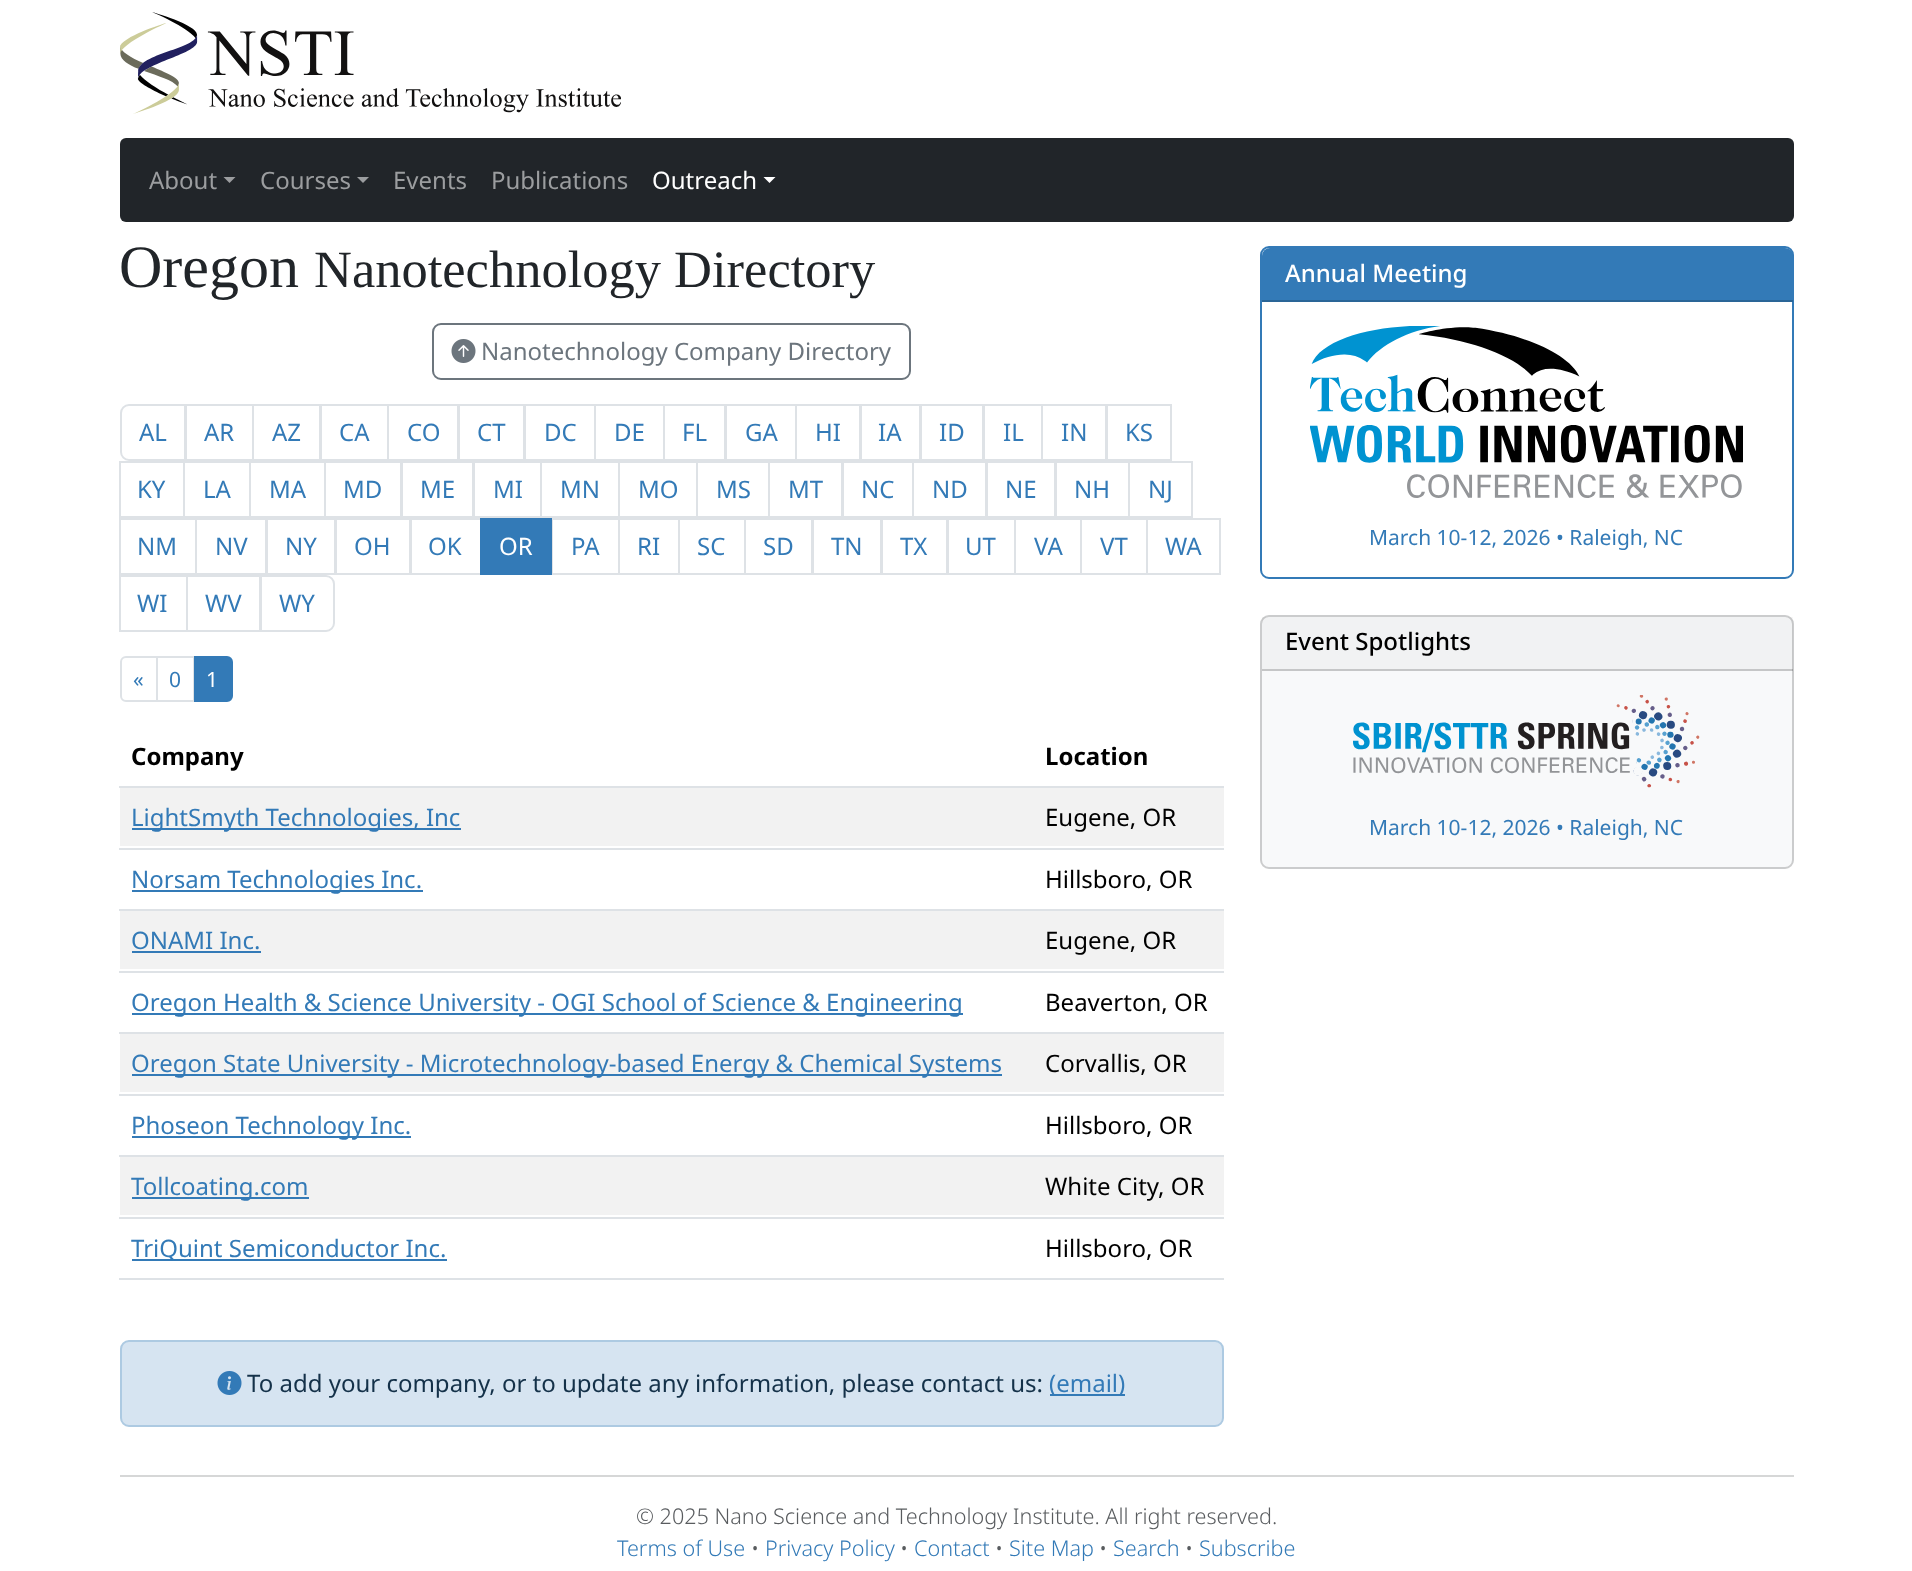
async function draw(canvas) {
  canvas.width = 1912;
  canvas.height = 1571;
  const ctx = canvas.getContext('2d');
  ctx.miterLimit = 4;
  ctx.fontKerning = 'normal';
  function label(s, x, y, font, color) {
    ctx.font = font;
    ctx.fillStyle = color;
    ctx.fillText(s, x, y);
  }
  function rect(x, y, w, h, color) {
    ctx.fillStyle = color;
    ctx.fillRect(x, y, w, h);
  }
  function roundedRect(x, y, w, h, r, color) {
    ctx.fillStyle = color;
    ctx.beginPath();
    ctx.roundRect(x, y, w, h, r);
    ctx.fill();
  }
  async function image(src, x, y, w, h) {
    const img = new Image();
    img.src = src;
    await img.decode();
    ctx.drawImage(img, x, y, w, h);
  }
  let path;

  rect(0, 0, 1912, 1571, '#fff');
  await image('assets/img1.png', 120, 12, 501, 102);
  roundedRect(120, 138, 1674, 84, 6, '#212529');
  label('About', 149, 189, '24px Noto Sans', '#9b9d9f');
  path = new Path2D('M223.5 177H235.5L229.5 183Z');
  ctx.fill(path);
  label('Courses', 260, 189, '24px Noto Sans', '#9b9d9f');
  path = new Path2D('M357 177H369L363 183Z');
  ctx.fill(path);
  label('Events', 393, 189, '24px Noto Sans', '#9b9d9f');
  label('Publications', 491, 189, '24px Noto Sans', '#9b9d9f');
  label('Outreach', 652, 189, '24px Noto Sans', '#fff');
  path = new Path2D('M763.5 177H775.5L769.5 183Z');
  ctx.fill(path);
  label('Oregon', 119, 287, '60px Liberation Serif', '#212529');
  label('Nanotechnology Directory', 314, 287, '52.5px Liberation Serif', '#212529');
  ctx.beginPath();
  ctx.roundRect(433, 324, 477, 55, 8);
  ctx.strokeStyle = '#6c757d';
  ctx.lineWidth = 2;
  ctx.stroke();
  await image('assets/img2.png', 451, 339, 25, 24);
  label('Nanotechnology Company Directory', 481, 360, '24px Noto Sans', '#6c757d');
  ctx.beginPath();
  ctx.roundRect(121, 405, 64, 55, [8, 0, 0, 8]);
  ctx.strokeStyle = '#dee2e6';
  ctx.stroke();
  label('AL', 139, 441, '24px Noto Sans', '#337ab7');
  ctx.strokeRect(186, 405, 67, 55);
  label('AR', 204, 441, '24px Noto Sans', '#337ab7');
  ctx.strokeRect(253, 405, 67, 55);
  label('AZ', 272, 441, '24px Noto Sans', '#337ab7');
  ctx.strokeRect(321, 405, 67, 55);
  label('CA', 339, 441, '24px Noto Sans', '#337ab7');
  ctx.strokeRect(388, 405, 70, 55);
  label('CO', 407, 441, '24px Noto Sans', '#337ab7');
  ctx.strokeRect(459, 405, 65, 55);
  label('CT', 477, 441, '24px Noto Sans', '#337ab7');
  ctx.strokeRect(525, 405, 70, 55);
  label('DC', 544, 441, '24px Noto Sans', '#337ab7');
  ctx.strokeRect(595, 405, 69, 55);
  label('DE', 614, 441, '24px Noto Sans', '#337ab7');
  ctx.strokeRect(664, 405, 61, 55);
  label('FL', 682, 441, '24px Noto Sans', '#337ab7');
  ctx.strokeRect(726, 405, 70, 55);
  label('GA', 745, 441, '24px Noto Sans', '#337ab7');
  ctx.strokeRect(796, 405, 64, 55);
  label('HI', 815, 441, '24px Noto Sans', '#337ab7');
  ctx.strokeRect(861, 405, 59, 55);
  label('IA', 878, 441, '24px Noto Sans', '#337ab7');
  ctx.strokeRect(921, 405, 62, 55);
  label('ID', 939, 441, '24px Noto Sans', '#337ab7');
  ctx.strokeRect(984, 405, 58, 55);
  label('IL', 1003, 441, '24px Noto Sans', '#337ab7');
  ctx.strokeRect(1042, 405, 64, 55);
  label('IN', 1061, 441, '24px Noto Sans', '#337ab7');
  ctx.strokeRect(1107, 405, 64, 55);
  label('KS', 1125, 441, '24px Noto Sans', '#337ab7');
  ctx.strokeRect(120, 462, 64, 55);
  label('KY', 137, 498, '24px Noto Sans', '#337ab7');
  ctx.strokeRect(184, 462, 66, 55);
  label('LA', 203, 498, '24px Noto Sans', '#337ab7');
  ctx.strokeRect(250, 462, 75, 55);
  label('MA', 269, 498, '24px Noto Sans', '#337ab7');
  ctx.strokeRect(325, 462, 76, 55);
  label('MD', 343, 498, '24px Noto Sans', '#337ab7');
  ctx.strokeRect(402, 462, 71, 55);
  label('ME', 420, 498, '24px Noto Sans', '#337ab7');
  ctx.strokeRect(474, 462, 67, 55);
  label('MI', 493, 498, '24px Noto Sans', '#337ab7');
  ctx.strokeRect(541, 462, 78, 55);
  label('MN', 560, 498, '24px Noto Sans', '#337ab7');
  ctx.strokeRect(619, 462, 78, 55);
  label('MO', 638, 498, '24px Noto Sans', '#337ab7');
  ctx.strokeRect(697, 462, 72, 55);
  label('MS', 716, 498, '24px Noto Sans', '#337ab7');
  ctx.strokeRect(769, 462, 73, 55);
  label('MT', 788, 498, '24px Noto Sans', '#337ab7');
  ctx.strokeRect(843, 462, 70, 55);
  label('NC', 861, 498, '24px Noto Sans', '#337ab7');
  ctx.strokeRect(913, 462, 73, 55);
  label('ND', 932, 498, '24px Noto Sans', '#337ab7');
  ctx.strokeRect(987, 462, 68, 55);
  label('NE', 1005, 498, '24px Noto Sans', '#337ab7');
  ctx.strokeRect(1056, 462, 73, 55);
  label('NH', 1074, 498, '24px Noto Sans', '#337ab7');
  ctx.strokeRect(1129, 462, 63, 55);
  label('NJ', 1148, 498, '24px Noto Sans', '#337ab7');
  ctx.strokeRect(120, 519, 76, 55);
  label('NM', 137, 555, '24px Noto Sans', '#337ab7');
  ctx.strokeRect(196, 519, 70, 55);
  label('NV', 215, 555, '24px Noto Sans', '#337ab7');
  ctx.strokeRect(267, 519, 68, 55);
  label('NY', 285, 555, '24px Noto Sans', '#337ab7');
  ctx.strokeRect(336, 519, 74, 55);
  label('OH', 354, 555, '24px Noto Sans', '#337ab7');
  ctx.strokeRect(411, 519, 70, 55);
  label('OK', 428, 555, '24px Noto Sans', '#337ab7');
  ctx.strokeRect(552, 519, 67, 55);
  rect(480, 518, 72, 57, '#337ab7');
  label('OR', 499, 555, '24px Noto Sans', '#fff');
  label('PA', 571, 555, '24px Noto Sans', '#337ab7');
  ctx.strokeRect(619, 519, 60, 55);
  label('RI', 637, 555, '24px Noto Sans', '#337ab7');
  ctx.strokeRect(679, 519, 66, 55);
  label('SC', 697, 555, '24px Noto Sans', '#337ab7');
  ctx.strokeRect(745, 519, 67, 55);
  label('SD', 763, 555, '24px Noto Sans', '#337ab7');
  ctx.strokeRect(813, 519, 68, 55);
  label('TN', 831, 555, '24px Noto Sans', '#337ab7');
  ctx.strokeRect(882, 519, 65, 55);
  label('TX', 900, 555, '24px Noto Sans', '#337ab7');
  ctx.strokeRect(948, 519, 67, 55);
  label('UT', 965, 555, '24px Noto Sans', '#337ab7');
  ctx.strokeRect(1015, 519, 66, 55);
  label('VA', 1034, 555, '24px Noto Sans', '#337ab7');
  ctx.strokeRect(1081, 519, 66, 55);
  label('VT', 1100, 555, '24px Noto Sans', '#337ab7');
  ctx.strokeRect(1147, 519, 73, 55);
  label('WA', 1165, 555, '24px Noto Sans', '#337ab7');
  ctx.strokeRect(120, 576, 67, 55);
  label('WI', 137, 612, '24px Noto Sans', '#337ab7');
  ctx.strokeRect(187, 576, 73, 55);
  label('WV', 205, 612, '24px Noto Sans', '#337ab7');
  ctx.fillStyle = '#fff';
  ctx.beginPath();
  ctx.roundRect(261, 576, 73, 55, [0, 8, 8, 0]);
  ctx.fill();
  ctx.stroke();
  label('WY', 279, 612, '24px Noto Sans', '#337ab7');
  ctx.beginPath();
  ctx.roundRect(121, 657, 36, 44, [5, 0, 0, 5]);
  ctx.stroke();
  label('«', 133, 687, '21px Noto Sans', '#337ab7');
  ctx.strokeRect(157, 657, 37, 44);
  label('0', 169, 687, '21px Noto Sans', '#337ab7');
  ctx.beginPath();
  ctx.roundRect(195, 657, 37, 44, [0, 5, 5, 0]);
  ctx.fill();
  ctx.strokeStyle = '#337ab7';
  ctx.stroke();
  label('1', 206, 687, '21px Noto Sans', '#fff');
  label('Company', 131, 765, 'bold 24px Noto Sans', '#000');
  rect(119, 786, 1105, 2, '#dee2e6');
  label('Location', 1045, 765, 'bold 24px Noto Sans', '#000');
  rect(120, 788, 1104, 58, '#f2f2f2');
  rect(132, 828, 329, 2, '#337ab7');
  label('LightSmyth Technologies, Inc', 131, 826, '24px Noto Sans', '#337ab7');
  rect(119, 848, 1105, 2, '#dee2e6');
  label('Eugene, OR', 1045, 826, '24px Noto Sans', '#000');
  rect(132, 890, 291, 2, '#337ab7');
  label('Norsam Technologies Inc.', 131, 888, '24px Noto Sans', '#337ab7');
  rect(119, 909, 1105, 2, '#dee2e6');
  label('Hillsboro, OR', 1045, 888, '24px Noto Sans', '#000');
  rect(120, 911, 1104, 58, '#f2f2f2');
  label('ONAMI Inc.', 131, 949, '24px Noto Sans', '#337ab7');
  rect(132, 951, 129, 2, '#337ab7');
  rect(119, 971, 1105, 2, '#dee2e6');
  label('Eugene, OR', 1045, 949, '24px Noto Sans', '#000');
  rect(132, 1013, 831, 2, '#337ab7');
  label('Oregon Health & Science University - OGI School of Science & Engineering', 131, 1011, '24px Noto Sans', '#337ab7');
  rect(119, 1032, 1105, 2, '#dee2e6');
  label('Beaverton, OR', 1045, 1011, '24px Noto Sans', '#000');
  rect(120, 1034, 1104, 58, '#f2f2f2');
  rect(132, 1074, 870, 2, '#337ab7');
  label('Oregon State University - Microtechnology-based Energy & Chemical Systems', 131, 1072, '24px Noto Sans', '#337ab7');
  rect(119, 1094, 1105, 2, '#dee2e6');
  label('Corvallis, OR', 1045, 1072, '24px Noto Sans', '#000');
  rect(132, 1136, 279, 2, '#337ab7');
  label('Phoseon Technology Inc.', 131, 1134, '24px Noto Sans', '#337ab7');
  rect(119, 1155, 1105, 2, '#dee2e6');
  label('Hillsboro, OR', 1045, 1134, '24px Noto Sans', '#000');
  rect(120, 1157, 1104, 58, '#f2f2f2');
  rect(132, 1197, 177, 2, '#337ab7');
  label('Tollcoating.com', 131, 1195, '24px Noto Sans', '#337ab7');
  rect(119, 1217, 1105, 2, '#dee2e6');
  label('White City, OR', 1045, 1195, '24px Noto Sans', '#000');
  rect(132, 1259, 315, 2, '#337ab7');
  label('TriQuint Semiconductor Inc.', 131, 1257, '24px Noto Sans', '#337ab7');
  rect(119, 1278, 1105, 2, '#dee2e6');
  label('Hillsboro, OR', 1045, 1257, '24px Noto Sans', '#000');
  ctx.fillStyle = '#d6e4f1';
  ctx.beginPath();
  ctx.roundRect(121, 1341, 1102, 85, 8);
  ctx.fill();
  ctx.strokeStyle = '#adcae2';
  ctx.stroke();
  await image('assets/img3.png', 217, 1371, 25, 24);
  label('To add your company, or to update any information, please contact us:', 247, 1392, '24px Noto Sans', '#143149');
  rect(1050, 1394, 75, 2, '#337ab7');
  label('(email)', 1049, 1392, '24px Noto Sans', '#337ab7');
  ctx.beginPath();
  ctx.roundRect(1261, 247, 532, 331, 8);
  ctx.strokeStyle = '#337ab7';
  ctx.stroke();
  ctx.beginPath();
  ctx.roundRect(1262, 248, 531, 54, [8, 8, 0, 0]);
  ctx.fill();
  rect(1262, 300, 531, 2, '#2a6597');
  label('Annual Meeting', 1285, 282, '500 24px Noto Sans', '#fff');
  await image('assets/img4.png', 1310, 326, 433, 172);
  label('March 10-12, 2026 • Raleigh, NC', 1369, 545, '21px Noto Sans', '#337ab7');
  roundedRect(1260, 615, 534, 254, 9, '#f8f9fa');
  ctx.beginPath();
  ctx.roundRect(1261, 616, 532, 252, 8);
  ctx.strokeStyle = '#0000002e';
  ctx.stroke();
  rect(1262, 617, 531, 54, '#21252908');
  rect(1262, 669, 531, 2, '#0000002e');
  label('Event Spotlights', 1285, 650, '500 24px Noto Sans', '#000');
  await image('assets/img5.png', 1353, 695, 347, 93);
  label('March 10-12, 2026 • Raleigh, NC', 1369, 835, '21px Noto Sans', '#337ab7');
  rect(120, 1475, 1674, 2, '#d6d7d7');
  label('© 2025 Nano Science and Technology Institute. All right reserved.', 636, 1524, '300 21.6px Noto Sans', '#595c5f');
  label('Terms of Use', 617, 1556, '300 21.6px Noto Sans', '#337ab7');
  label('•', 751, 1556, '300 21.6px Noto Sans', '#595c5f');
  label('Privacy Policy', 765, 1556, '300 21.6px Noto Sans', '#337ab7');
  label('•', 900, 1556, '300 21.6px Noto Sans', '#595c5f');
  label('Contact', 914, 1556, '300 21.6px Noto Sans', '#337ab7');
  label('•', 995, 1556, '300 21.6px Noto Sans', '#595c5f');
  label('Site Map', 1009, 1556, '300 21.6px Noto Sans', '#337ab7');
  label('•', 1099, 1556, '300 21.6px Noto Sans', '#595c5f');
  label('Search', 1113, 1556, '300 21.6px Noto Sans', '#337ab7');
  label('•', 1185, 1556, '300 21.6px Noto Sans', '#595c5f');
  label('Subscribe', 1199, 1556, '300 21.6px Noto Sans', '#337ab7');
}

draw(document.querySelector('canvas'));
